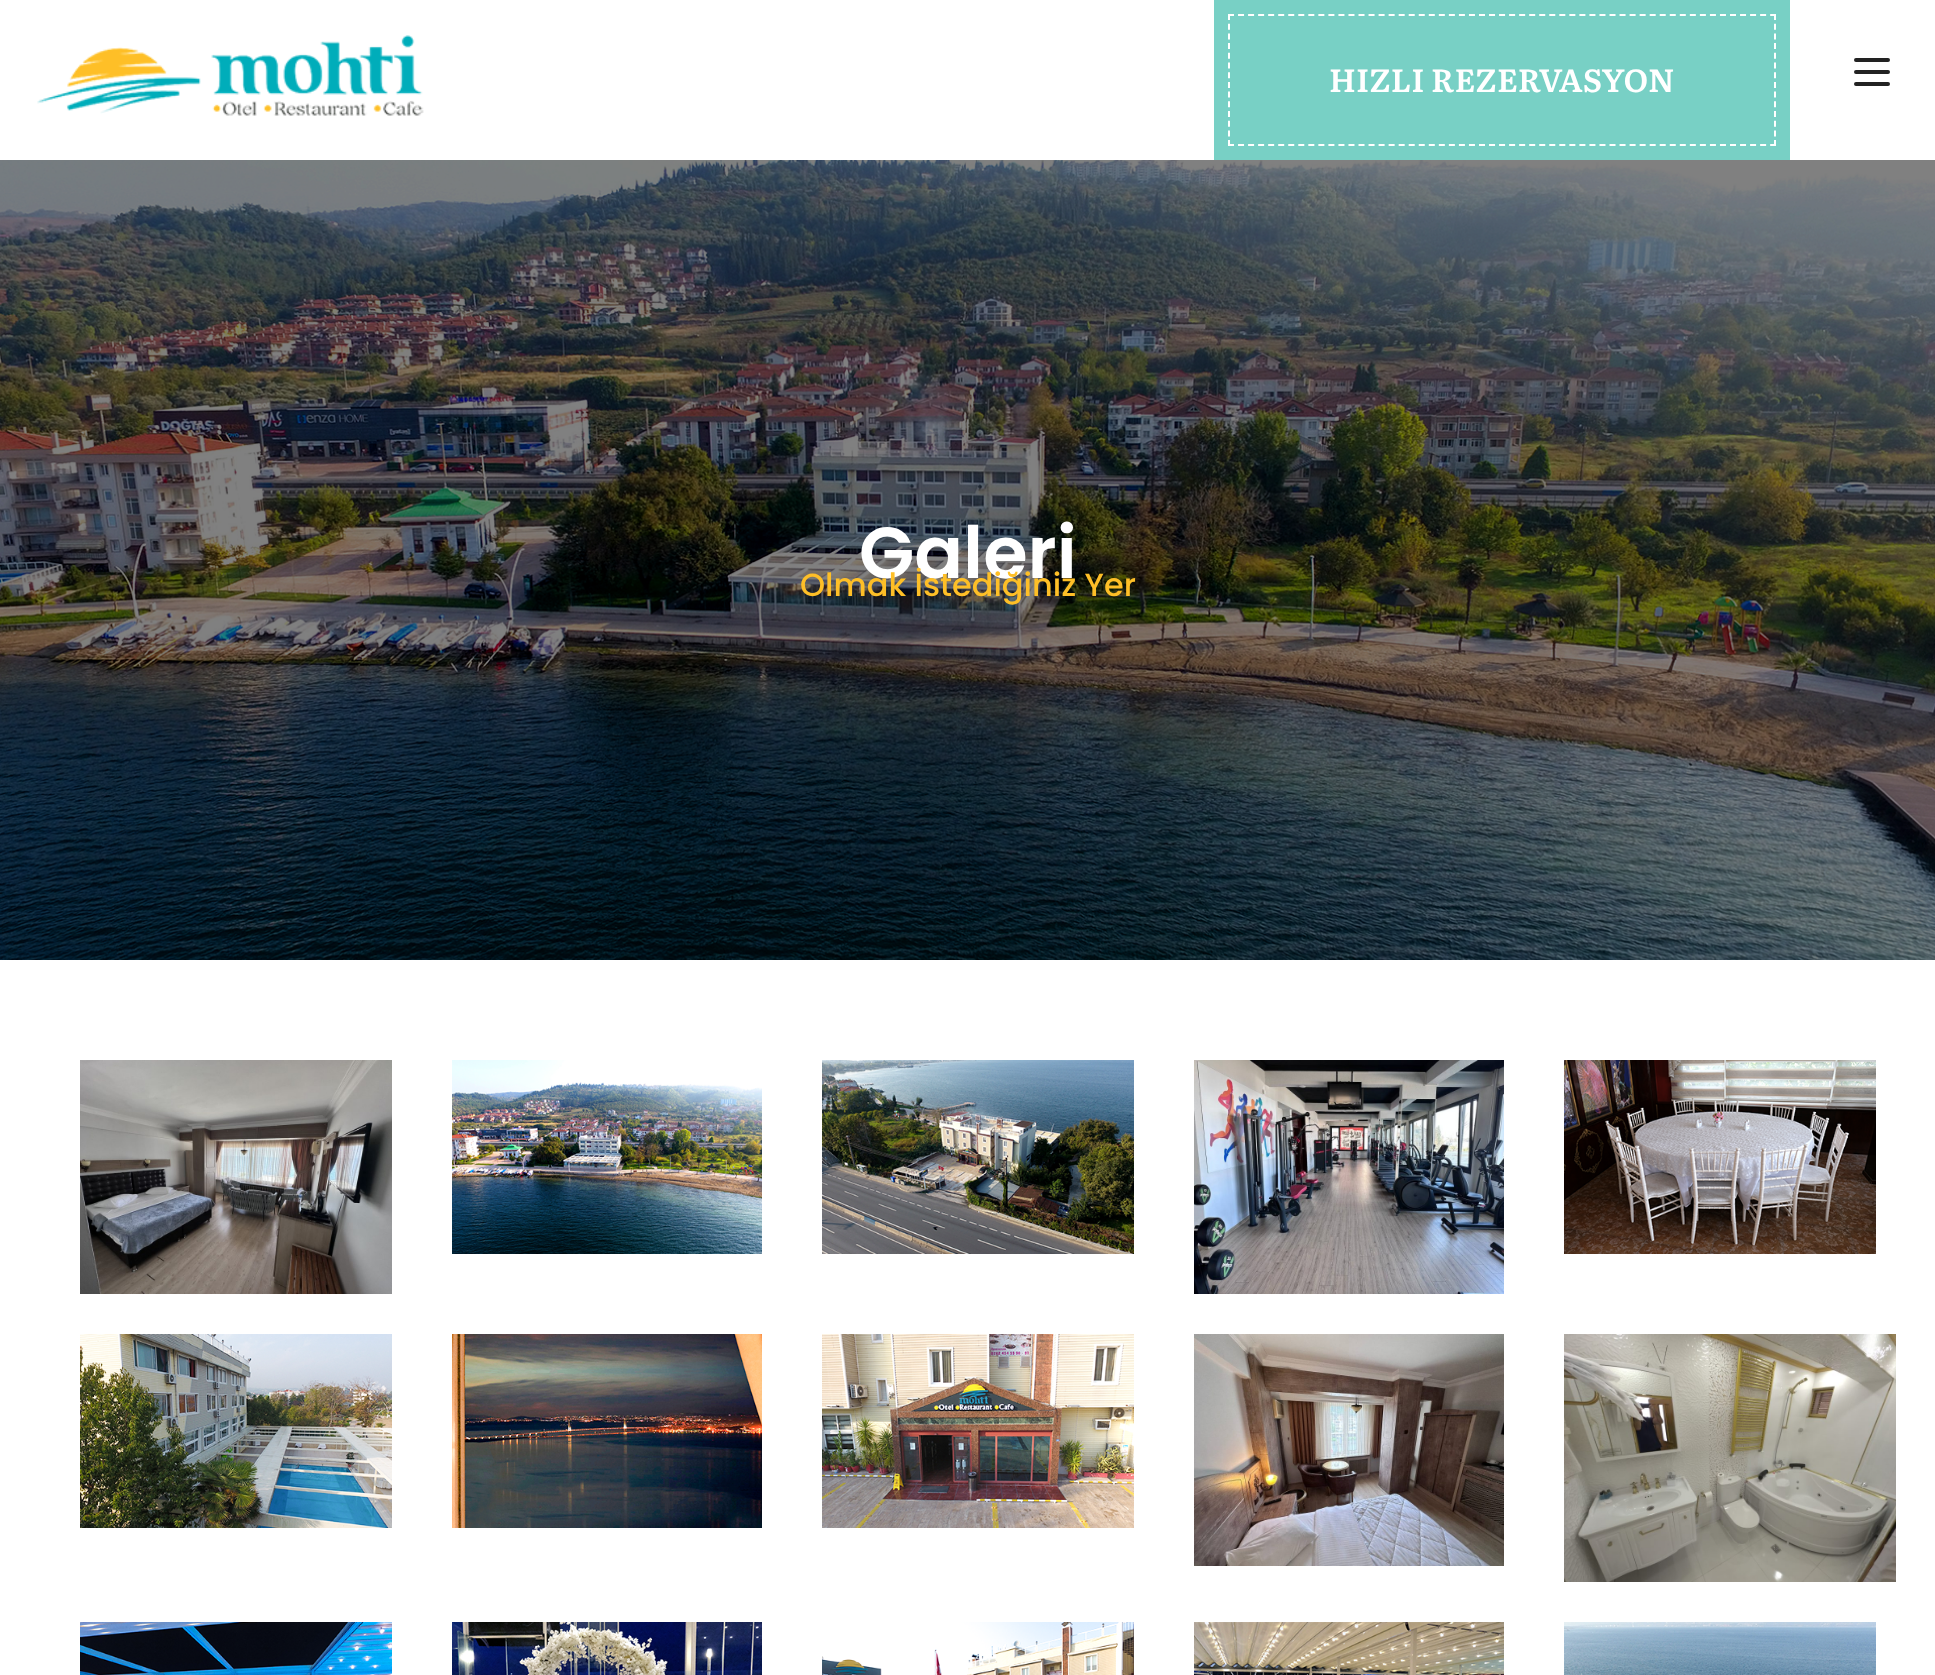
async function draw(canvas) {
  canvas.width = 1935;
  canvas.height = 1675;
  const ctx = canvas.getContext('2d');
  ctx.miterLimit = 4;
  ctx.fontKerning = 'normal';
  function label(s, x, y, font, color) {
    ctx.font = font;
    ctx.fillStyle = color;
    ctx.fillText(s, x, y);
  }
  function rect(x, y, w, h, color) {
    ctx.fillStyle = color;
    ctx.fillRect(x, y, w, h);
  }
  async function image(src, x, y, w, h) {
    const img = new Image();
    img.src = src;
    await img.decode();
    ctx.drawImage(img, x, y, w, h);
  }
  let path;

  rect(0, 0, 1935, 1675, '#fff');
  await image('assets/img1.png', 37, 35, 387, 81);
  rect(1214, 0, 576, 160, '#78d0c5');
  path = new Path2D('M1228 15H1776');
  ctx.strokeStyle = '#fff';
  ctx.lineWidth = 2;
  ctx.setLineDash([6, 4.04]);
  ctx.stroke(path);
  path = new Path2D('M1775 14V146');
  ctx.setLineDash([6, 3.7]);
  ctx.stroke(path);
  path = new Path2D('M1228 145H1776');
  ctx.setLineDash([6, 4.04]);
  ctx.stroke(path);
  path = new Path2D('M1229 14V146');
  ctx.setLineDash([6, 3.7]);
  ctx.stroke(path);
  label('HIZLI REZERVASYON', 1329, 92, '600 32px Literata', '#fff');
  path = new Path2D('M1856 60H1888M1856 72H1888M1856 84H1888');
  ctx.strokeStyle = '#222';
  ctx.lineWidth = 4;
  ctx.lineCap = 'round';
  ctx.lineJoin = 'round';
  ctx.setLineDash([]);
  ctx.stroke(path);
  await image('assets/img2.png', 0, 160, 1935, 800);
  label('Galeri', 859, 578, '600 72px Poppins', '#fff');
  label('Olmak İstediğiniz Yer', 800, 596, '500 32px Poppins', '#febf27');
  await image('assets/img3.png', 80, 1060, 312, 234);
  await image('assets/img4.png', 452, 1060, 310, 194);
  await image('assets/img5.png', 822, 1060, 312, 194);
  await image('assets/img6.png', 1194, 1060, 310, 234);
  await image('assets/img7.png', 1564, 1060, 312, 194);
  await image('assets/img8.png', 80, 1334, 312, 194);
  await image('assets/img9.png', 452, 1334, 310, 194);
  await image('assets/img10.png', 822, 1334, 312, 194);
  await image('assets/img11.png', 1194, 1334, 310, 232);
  await image('assets/img12.png', 1564, 1334, 332, 248);
  await image('assets/img13.png', 80, 1622, 312, 53);
  await image('assets/img14.png', 452, 1622, 310, 53);
  await image('assets/img15.png', 822, 1622, 312, 53);
  await image('assets/img16.png', 1194, 1622, 310, 53);
  await image('assets/img17.png', 1564, 1622, 312, 53);
}

draw(document.querySelector('canvas'));
